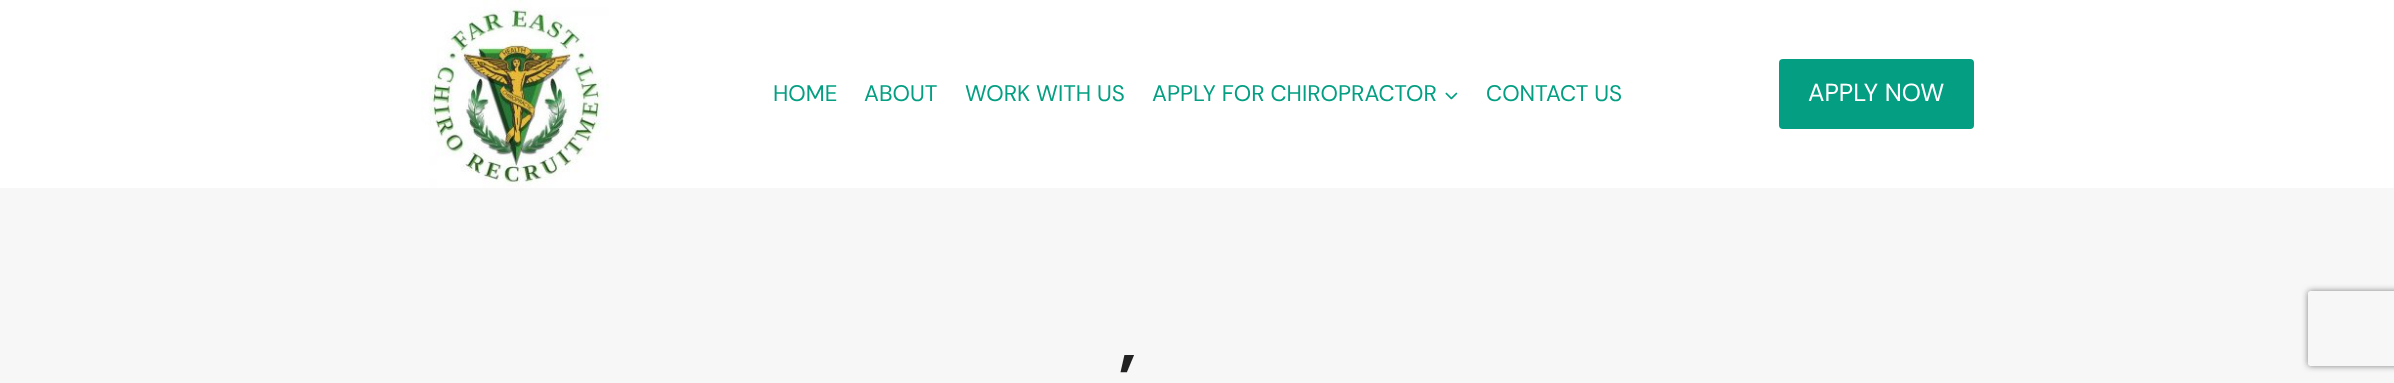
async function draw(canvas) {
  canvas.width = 2394;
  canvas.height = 383;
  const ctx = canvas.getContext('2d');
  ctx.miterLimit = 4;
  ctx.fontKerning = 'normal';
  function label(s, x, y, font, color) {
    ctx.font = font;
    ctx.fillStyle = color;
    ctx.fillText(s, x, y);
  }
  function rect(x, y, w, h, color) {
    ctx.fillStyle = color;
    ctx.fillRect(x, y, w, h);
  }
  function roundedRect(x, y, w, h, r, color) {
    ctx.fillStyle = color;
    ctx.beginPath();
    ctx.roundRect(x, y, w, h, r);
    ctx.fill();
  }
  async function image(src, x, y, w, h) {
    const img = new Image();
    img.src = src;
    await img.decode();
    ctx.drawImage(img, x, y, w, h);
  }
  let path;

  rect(0, 0, 2394, 383, '#f7f7f7');
  rect(0, 0, 2394, 188, '#fff');
  await image('assets/img1.png', 421, 0, 188, 188);
  label('HOME', 773, 101, '22.5px DM Sans', '#049f82');
  label('ABOUT', 864, 101, '22.5px DM Sans', '#049f82');
  label('WORK WITH US', 965, 101, '22.5px DM Sans', '#049f82');
  label('APPLY FOR CHIROPRACTOR', 1152, 101, '22.5px DM Sans', '#049f82');
  await image('assets/img2.png', 1445, 92, 13, 8);
  label('CONTACT US', 1486, 101, '22.5px DM Sans', '#049f82');
  roundedRect(1779, 59, 195, 70, 4, '#049f82');
  label('APPLY NOW', 1808, 101, '24.75px DM Sans', '#fff');
  label('’', 1117, 404, '600 70px Jost', '#222');
  ctx.save();
  path = new Path2D('M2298 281H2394V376H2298ZM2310.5 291H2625.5C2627 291 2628 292 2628 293.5V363.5C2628 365 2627 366 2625.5 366H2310.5C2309 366 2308 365 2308 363.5V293.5C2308 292 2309 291 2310.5 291Z');
  ctx.clip(path, 'evenodd');
  ctx.fillStyle = '#808080';
  ctx.filter = 'blur(3px)';
  ctx.beginPath();
  ctx.roundRect(2308, 291, 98, 75, 2.5);
  ctx.fill();
  ctx.filter = 'none';
  ctx.restore();
}

draw(document.querySelector('canvas'));
